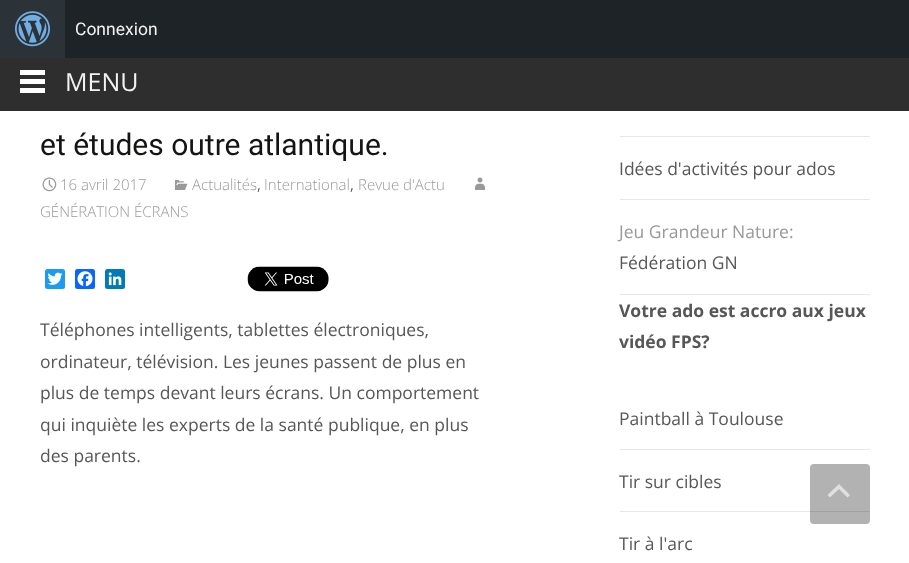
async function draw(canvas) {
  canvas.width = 909;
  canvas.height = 563;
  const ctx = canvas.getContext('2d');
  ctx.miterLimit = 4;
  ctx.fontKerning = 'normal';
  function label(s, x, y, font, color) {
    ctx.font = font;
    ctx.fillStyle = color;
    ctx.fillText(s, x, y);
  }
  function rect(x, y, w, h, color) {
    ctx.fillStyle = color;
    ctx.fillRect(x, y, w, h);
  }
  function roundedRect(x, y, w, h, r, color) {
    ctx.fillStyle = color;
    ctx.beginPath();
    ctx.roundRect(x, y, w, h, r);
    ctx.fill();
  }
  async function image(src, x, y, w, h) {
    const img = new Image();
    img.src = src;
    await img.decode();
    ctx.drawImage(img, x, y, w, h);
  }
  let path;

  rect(0, 0, 909, 563, '#fff');
  rect(65, 0, 844, 58, '#1d2327');
  rect(0, 0, 65, 58, '#2c3338');
  await image('assets/img1.png', 15, 11, 35, 36);
  label('Connexion', 75, 35, '17.5px Roboto', '#f2f2f2');
  rect(0, 58, 909, 53, '#2e2e2e');
  rect(20, 70, 25, 5, '#fff');
  rect(20, 79, 25, 5, '#fff');
  rect(20, 88, 25, 5, '#fff');
  label('MENU', 65, 91, '25px Open Sans', '#f2f2f2');
  label('et études outre atlantique.', 40, 155, '30px Roboto', '#141412');
  await image('assets/img2.png', 42, 177, 15, 15);
  label('16 avril 2017', 60, 190, '300 15px Open Sans', '#999');
  await image('assets/img3.png', 175, 180, 13, 10);
  label('Actualités', 192, 190, '300 15px Open Sans', '#999');
  label(',', 257, 190, '15px Open Sans', '#575757');
  label('International', 264, 190, '300 15px Open Sans', '#999');
  label(',', 350, 190, '15px Open Sans', '#575757');
  label('Revue d\'Actu', 358, 190, '300 15px Open Sans', '#999');
  await image('assets/img4.png', 475, 177, 10, 13);
  label('GÉNÉRATION ÉCRANS', 40, 217, '300 15px Open Sans', '#999');
  roundedRect(45, 269, 20, 20, 2.5, '#1d9bf0');
  await image('assets/img5.png', 47, 272, 16, 13);
  roundedRect(75, 269, 20, 20, 2.5, '#0866ff');
  await image('assets/img6.png', 77, 271, 16, 16);
  roundedRect(105, 269, 20, 20, 2.5, '#007bb5');
  await image('assets/img7.png', 108, 272, 14, 14);
  await image('assets/img8.png', 247, 266, 82, 26);
  label('Téléphones intelligents, tablettes électroniques,', 40, 336, '17.5px Open Sans', '#575757');
  label('ordinateur, télévision. Les jeunes passent de plus en', 40, 368, '17.5px Open Sans', '#575757');
  label('plus de temps devant leurs écrans. Un comportement', 40, 399, '17.5px Open Sans', '#575757');
  label('qui inquiète les experts de la santé publique, en plus', 40, 431, '17.5px Open Sans', '#575757');
  label('des parents.', 40, 462, '17.5px Open Sans', '#575757');
  rect(620, 136, 250, 1, '#e7e7e7');
  rect(620, 199, 250, 1, '#e7e7e7');
  label('Idées d\'activités pour ados', 619, 175, '17.5px Open Sans', '#575757');
  rect(620, 294, 250, 1, '#e7e7e7');
  label('Jeu Grandeur Nature:', 619, 238, '17.5px Open Sans', '#999');
  label('Fédération GN', 619, 269, '17.5px Open Sans', '#575757');
  label('Votre ado est accro aux jeux', 619, 317, 'bold 17.5px Open Sans', '#575757');
  label('vidéo FPS?', 619, 348, 'bold 17.5px Open Sans', '#575757');
  rect(620, 449, 250, 1, '#e7e7e7');
  label('Paintball à Toulouse', 619, 425, '17.5px Open Sans', '#575757');
  rect(620, 511, 250, 1, '#e7e7e7');
  label('Tir sur cibles', 619, 488, '17.5px Open Sans', '#575757');
  label('Tir à l\'arc', 619, 550, '17.5px Open Sans', '#575757');
  roundedRect(810, 464, 60, 60, 4, '#0000004d');
  ctx.fillStyle = '#dfdfdf';
  path = new Path2D('M827.5 495L839 484L850 495L847.5 497.5L839 489L830 497.5Z');
  ctx.fill(path);
}

draw(document.querySelector('canvas'));
